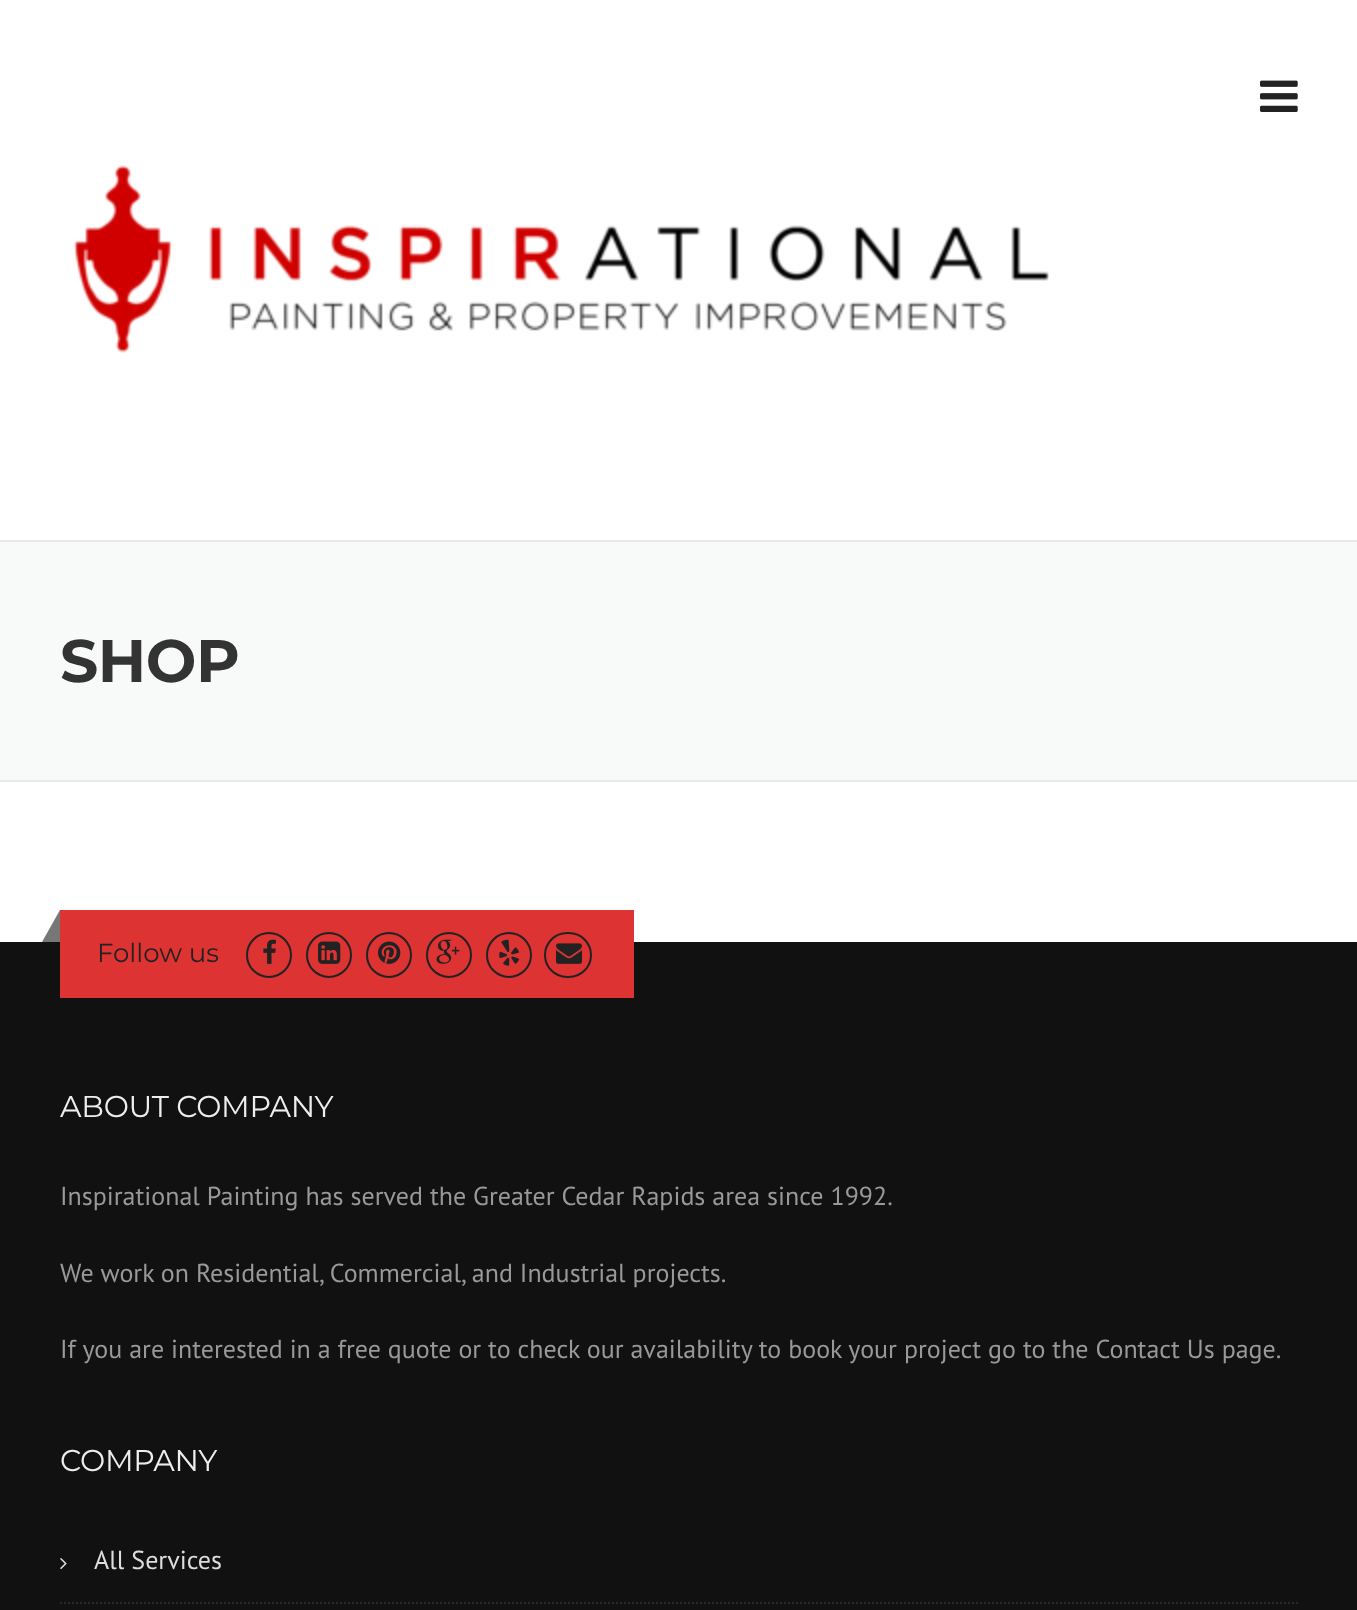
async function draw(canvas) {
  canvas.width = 1357;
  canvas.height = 1610;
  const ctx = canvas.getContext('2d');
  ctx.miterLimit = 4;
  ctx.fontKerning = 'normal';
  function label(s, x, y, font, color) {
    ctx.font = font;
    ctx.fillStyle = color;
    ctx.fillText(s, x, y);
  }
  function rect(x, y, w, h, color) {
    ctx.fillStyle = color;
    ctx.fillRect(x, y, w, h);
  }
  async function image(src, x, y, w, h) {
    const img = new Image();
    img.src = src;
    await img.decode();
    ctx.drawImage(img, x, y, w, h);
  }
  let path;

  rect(0, 0, 1357, 1610, '#fff');
  await image('assets/img1.png', 1260, 80, 38, 32);
  await image('assets/img2.png', 73, 165, 976, 188);
  rect(0, 542, 1357, 238, '#f8f9f9');
  rect(0, 540, 1357, 2, '#e9e9e9');
  rect(0, 780, 1357, 2, '#e9e9e9');
  ctx.letterSpacing = '-0.5px';
  label('SHOP', 60, 682, 'bold 60px Montserrat', '#333');
  rect(0, 942, 1357, 668, '#111');
  rect(60, 910, 574, 88, '#d33');
  ctx.fillStyle = '#777';
  path = new Path2D('M60 910V942H42Z');
  ctx.fill(path);
  ctx.letterSpacing = '0px';
  label('Follow us', 97, 962, '26px Montserrat', '#222');
  ctx.beginPath();
  ctx.arc(269, 955, 22, 0, 2 * Math.PI);
  ctx.strokeStyle = '#222';
  ctx.lineWidth = 2;
  ctx.stroke();
  await image('assets/img3.png', 263, 939, 13, 25);
  ctx.beginPath();
  ctx.arc(329, 955, 22, 0, 2 * Math.PI);
  ctx.stroke();
  await image('assets/img4.png', 318, 941, 23, 23);
  ctx.beginPath();
  ctx.arc(389, 955, 22, 0, 2 * Math.PI);
  ctx.stroke();
  await image('assets/img5.png', 378, 941, 23, 23);
  ctx.beginPath();
  ctx.arc(449, 955, 22, 0, 2 * Math.PI);
  ctx.stroke();
  await image('assets/img6.png', 436, 939, 24, 25);
  ctx.beginPath();
  ctx.arc(509, 955, 22, 0, 2 * Math.PI);
  ctx.stroke();
  await image('assets/img7.png', 499, 939, 20, 27);
  ctx.beginPath();
  ctx.roundRect(545, 933, 46, 44, 22);
  ctx.stroke();
  await image('assets/img8.png', 556, 943, 26, 21);
  ctx.letterSpacing = '-0.25px';
  label('ABOUT COMPANY', 60, 1117, '30px Montserrat', '#eee');
  ctx.letterSpacing = '0px';
  label('Inspirational Painting has served the Greater Cedar Rapids area since 1992.', 60, 1205, '26px PT Sans', '#999');
  label('We work on Residential, Commercial, and Industrial projects.', 60, 1282, '26px PT Sans', '#999');
  label('If you are interested in a free quote or to check our availability to book your project go to the Contact Us page.', 60, 1358, '26px PT Sans', '#999');
  ctx.letterSpacing = '-0.25px';
  label('COMPANY', 60, 1471, '30px Montserrat', '#eee');
  path = new Path2D('M60 1603H1298');
  ctx.strokeStyle = '#292929';
  ctx.setLineDash([2, 2]);
  ctx.stroke(path);
  await image('assets/img9.png', 60, 1558, 7, 12);
  ctx.letterSpacing = '0px';
  label('All Services', 94, 1569, '26px PT Sans', '#ddd');
}

draw(document.querySelector('canvas'));
